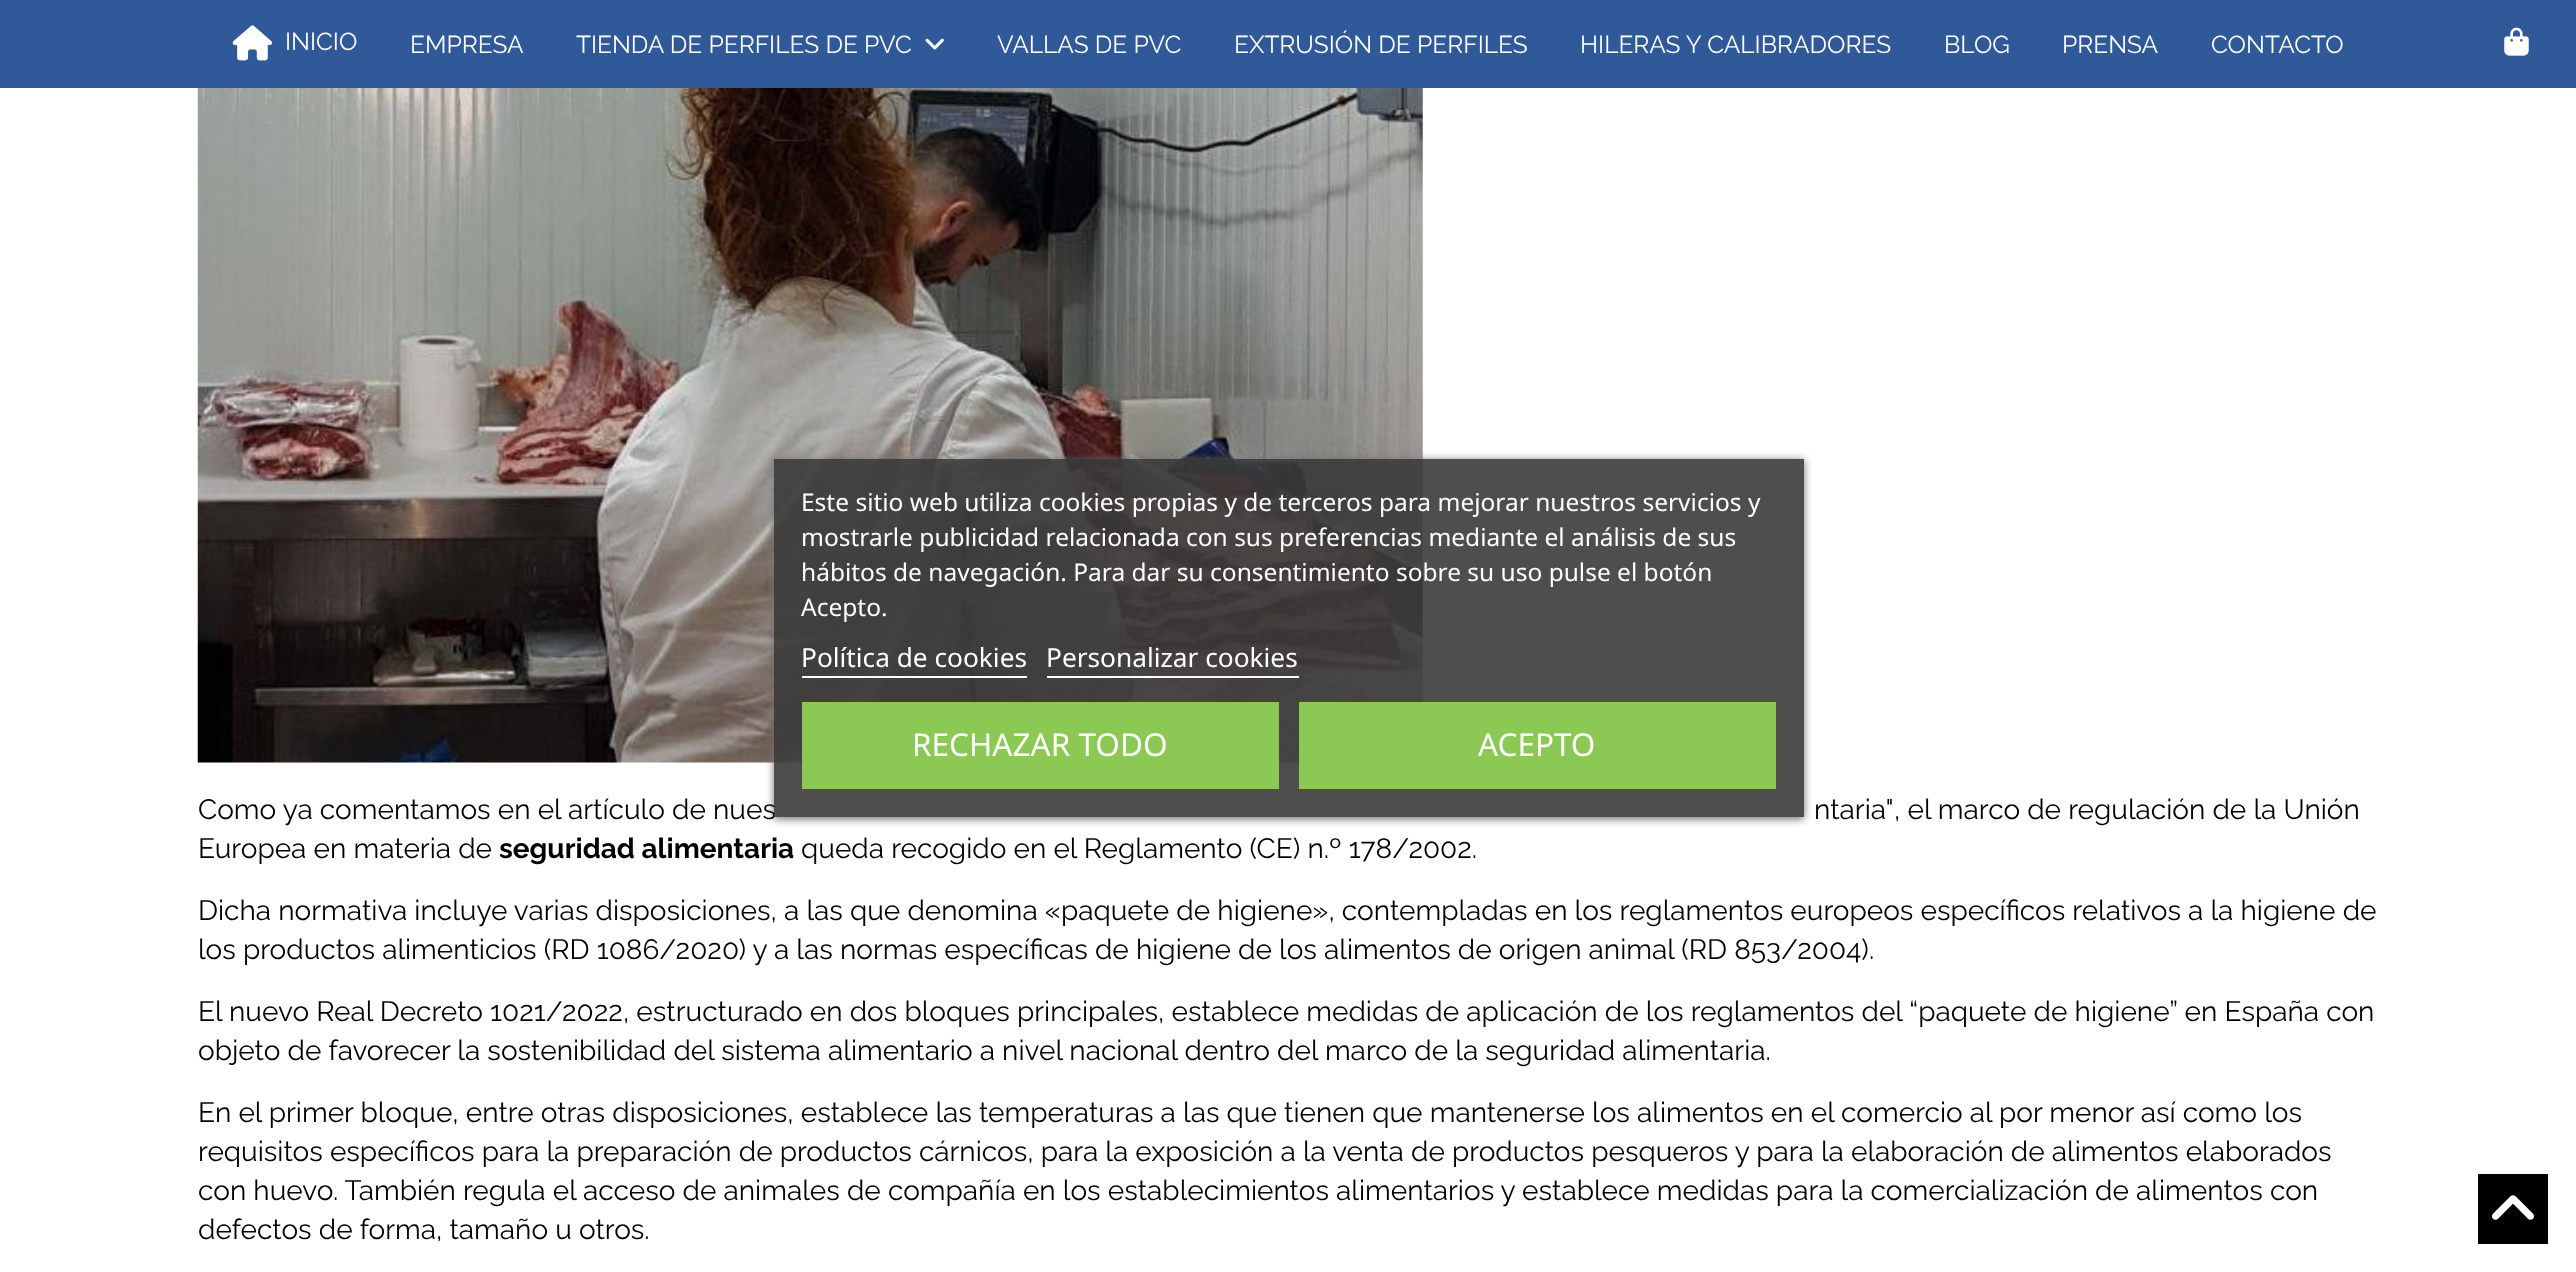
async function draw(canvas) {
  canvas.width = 2576;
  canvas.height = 1272;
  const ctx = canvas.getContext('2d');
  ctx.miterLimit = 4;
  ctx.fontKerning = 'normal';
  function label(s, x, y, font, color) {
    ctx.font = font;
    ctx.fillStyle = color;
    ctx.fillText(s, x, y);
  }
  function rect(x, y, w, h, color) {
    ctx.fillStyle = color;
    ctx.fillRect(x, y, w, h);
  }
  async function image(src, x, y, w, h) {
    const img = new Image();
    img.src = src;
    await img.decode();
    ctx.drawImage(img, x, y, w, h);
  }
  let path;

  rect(0, 0, 2576, 1272, '#fff');
  rect(0, 0, 2576, 88, '#30599a');
  await image('assets/img1.png', 232, 25, 41, 36);
  label('INICIO', 285, 50, '24.5px Raleway', '#fff');
  label('EMPRESA', 410, 53, '24.5px Raleway', '#fff');
  label('TIENDA DE PERFILES DE PVC', 576, 53, '24.5px Raleway', '#fff');
  await image('assets/img2.png', 925, 38, 19, 12);
  label('VALLAS DE PVC', 997, 53, '24.5px Raleway', '#fff');
  label('EXTRUSIÓN DE PERFILES', 1234, 53, '24.5px Raleway', '#fff');
  label('HILERAS Y CALIBRADORES', 1580, 53, '24.5px Raleway', '#fff');
  label('BLOG', 1944, 53, '24.5px Raleway', '#fff');
  label('PRENSA', 2062, 53, '24.5px Raleway', '#fff');
  label('CONTACTO', 2211, 53, '24.5px Raleway', '#fff');
  await image('assets/img3.png', 2504, 27, 25, 29);
  await image('assets/img4.png', 197, 88, 1226, 675);
  ctx.save();
  path = new Path2D('M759 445H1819V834H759ZM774 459H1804V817H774Z');
  ctx.clip(path, 'evenodd');
  ctx.fillStyle = '#707070';
  ctx.filter = 'blur(4.5px)';
  ctx.beginPath();
  ctx.rect(774, 460, 1030, 359);
  ctx.fill();
  ctx.filter = 'none';
  ctx.restore();
  label('Como ya comentamos en el artículo de nues', 198, 819, '28px Raleway', '#000');
  rect(774, 459, 1030, 358, '#3b3b3be6');
  label('Este sitio web utiliza cookies propias y de terceros para mejorar nuestros servicios y', 801, 511, '24.5px Noto Sans', '#fff');
  label('mostrarle publicidad relacionada con sus preferencias mediante el análisis de sus', 801, 546, '24.5px Noto Sans', '#fff');
  label('hábitos de navegación. Para dar su consentimiento sobre su uso pulse el botón', 801, 581, '24.5px Noto Sans', '#fff');
  label('Acepto.', 801, 616, '24.5px Noto Sans', '#fff');
  label('Política de cookies', 801, 667, '26.25px Noto Sans', '#fff');
  rect(802, 676, 225, 2, '#fff');
  label('Personalizar cookies', 1046, 667, '26.25px Noto Sans', '#fff');
  rect(1047, 676, 252, 2, '#fff');
  rect(802, 702, 477, 87, '#8bc954');
  label('RECHAZAR TODO', 912, 756, '31.5px Noto Sans', '#fff');
  rect(1299, 702, 477, 87, '#8bc954');
  label('ACEPTO', 1478, 756, '31.5px Noto Sans', '#fff');
  label('ntaria"', 1814, 819, '28px Raleway', '#000');
  label(', el marco de regulación de la Unión', 1894, 819, '28px Raleway', '#000');
  label('Europea en materia de', 198, 858, '28px Raleway', '#000');
  label('seguridad alimentaria', 499, 858, 'bold 28px Raleway', '#000');
  label('queda recogido en el Reglamento (CE) n.º 178/2002.', 801, 858, '28px Raleway', '#000');
  label('Dicha normativa incluye varias disposiciones, a las que denomina «paquete de higiene», contempladas en los reglamentos europeos específicos relativos a la higiene de', 198, 920, '28px Raleway', '#000');
  label('los productos alimenticios (RD 1086/2020) y a las normas específicas de higiene de los alimentos de origen animal (RD 853/2004).', 198, 959, '28px Raleway', '#000');
  label('El nuevo Real Decreto 1021/2022, estructurado en dos bloques principales, establece medidas de aplicación de los reglamentos del “paquete de higiene” en España con', 198, 1021, '28px Raleway', '#000');
  label('objeto de favorecer la sostenibilidad del sistema alimentario a nivel nacional dentro del marco de la seguridad alimentaria.', 198, 1060, '28px Raleway', '#000');
  label('En el primer bloque, entre otras disposiciones, establece las temperaturas a las que tienen que mantenerse los alimentos en el comercio al por menor así como los', 198, 1122, '28px Raleway', '#000');
  label('requisitos específicos para la preparación de productos cárnicos, para la exposición a la venta de productos pesqueros y para la elaboración de alimentos elaborados', 198, 1161, '28px Raleway', '#000');
  label('con huevo. También regula el acceso de animales de compañía en los establecimientos alimentarios y establece medidas para la comercialización de alimentos con', 198, 1200, '28px Raleway', '#000');
  label('defectos de forma, tamaño u otros.', 198, 1239, '28px Raleway', '#000');
  rect(2478, 1174, 70, 70, '#000');
  await image('assets/img5.png', 2492, 1195, 42, 25);
}

draw(document.querySelector('canvas'));
